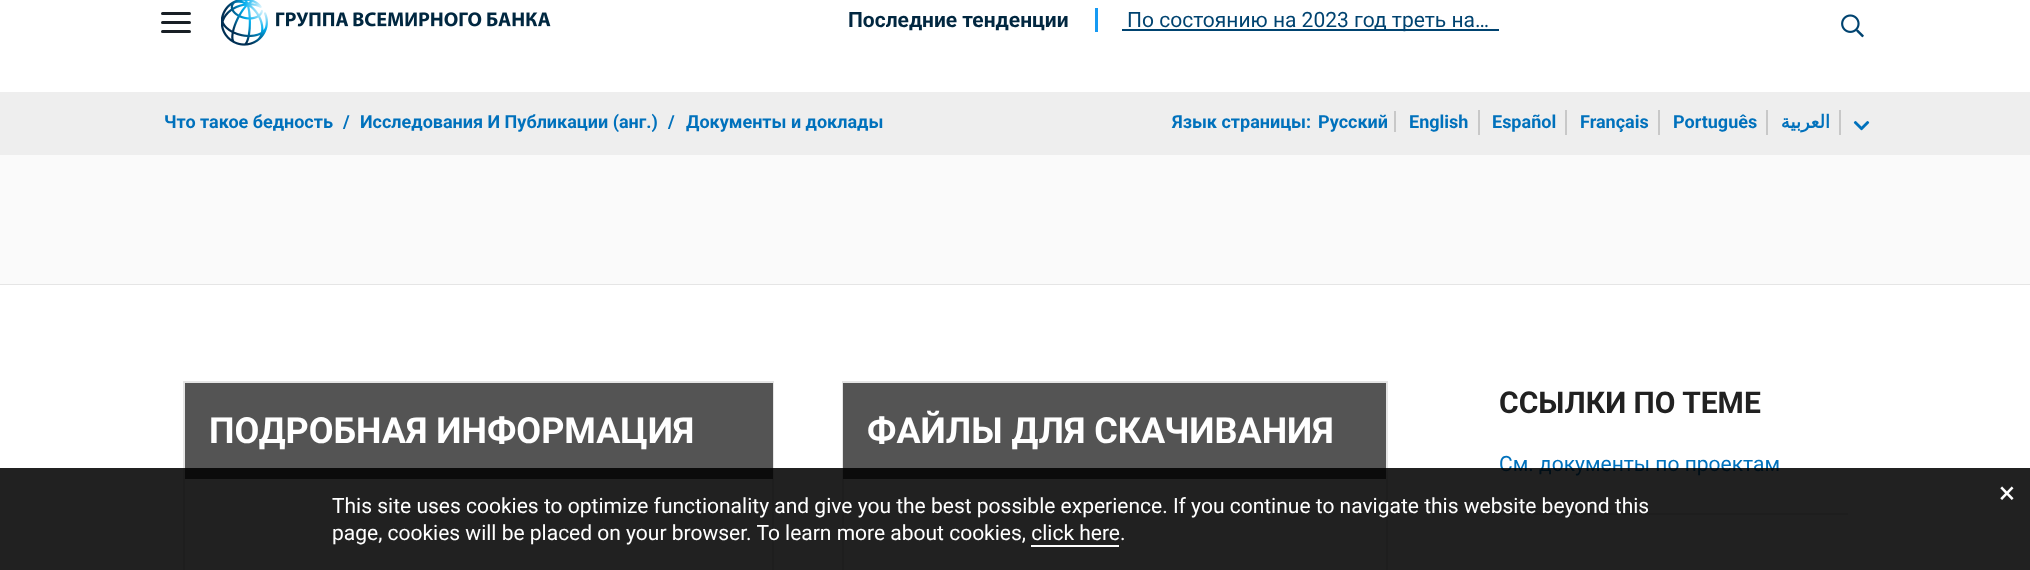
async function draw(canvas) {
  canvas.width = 2030;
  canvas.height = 570;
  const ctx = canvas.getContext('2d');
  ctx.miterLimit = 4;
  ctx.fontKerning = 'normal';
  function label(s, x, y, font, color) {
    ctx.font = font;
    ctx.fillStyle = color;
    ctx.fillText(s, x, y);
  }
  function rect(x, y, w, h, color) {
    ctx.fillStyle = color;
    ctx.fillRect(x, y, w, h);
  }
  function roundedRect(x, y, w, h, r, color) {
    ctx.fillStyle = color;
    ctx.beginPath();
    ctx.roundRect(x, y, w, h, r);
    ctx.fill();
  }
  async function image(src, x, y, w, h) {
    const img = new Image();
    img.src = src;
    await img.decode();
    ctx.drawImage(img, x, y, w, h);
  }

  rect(0, 0, 2030, 570, '#fff');
  roundedRect(161, 21, 30, 3, 1.5, '#181f25');
  roundedRect(161, 12, 30, 3, 1.5, '#181f25');
  roundedRect(161, 30, 30, 3, 1.5, '#181f25');
  await image('assets/img1.png', 221, 0, 330, 46);
  label('Последние тенденции', 848, 27, 'bold 21px Roboto', '#012740');
  rect(1095, 8, 3, 24, '#169af3');
  rect(1122, 29, 377, 2, '#004370');
  label('По состоянию на 2023 год треть на…', 1127, 27, '21px Roboto', '#004370');
  await image('assets/img2.png', 1841, 14, 23, 24);
  rect(0, 92, 2030, 63, '#eee');
  label('Что такое бедность', 164, 128, 'bold 18px Roboto', '#0071bc');
  label('/', 343, 128, 'bold 18px Roboto', '#0071bc');
  label('Исследования И Публикации (анг.)', 360, 128, 'bold 18px Roboto', '#0071bc');
  label('/', 668, 128, 'bold 18px Roboto', '#0071bc');
  label('Документы и доклады', 686, 128, 'bold 18px Roboto', '#0071bc');
  label('Язык страницы:', 1172, 128, 'bold 18px Roboto', '#0071bc');
  label('Русский', 1318, 128, 'bold 18px Roboto', '#0071bc');
  rect(1394, 111, 2, 21, '#c8c8c8');
  rect(1478, 110, 2, 25, '#c8c8c8');
  label('English', 1409, 128, 'bold 18px Roboto', '#0071bc');
  rect(1565, 110, 2, 25, '#c8c8c8');
  label('Español', 1492, 128, 'bold 18px Roboto', '#0071bc');
  rect(1658, 110, 2, 25, '#c8c8c8');
  label('Français', 1580, 128, 'bold 18px Roboto', '#0071bc');
  rect(1766, 110, 2, 25, '#c8c8c8');
  label('Português', 1673, 128, 'bold 18px Roboto', '#0071bc');
  rect(1839, 110, 2, 25, '#c8c8c8');
  ctx.direction = 'rtl';
  label('العربية', 1830, 128, 'bold 18px DejaVu Sans', '#0071bc');
  await image('assets/img3.png', 1853, 121, 17, 10);
  rect(0, 155, 2030, 129, '#fafafa');
  rect(0, 284, 2030, 1, '#e5e5e5');
  ctx.strokeStyle = '#e5e5e5';
  ctx.lineWidth = 2;
  ctx.strokeRect(184, 382, 589, 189);
  rect(185, 383, 588, 96, '#545454');
  ctx.direction = 'ltr';
  label('ПОДРОБНАЯ ИНФОРМАЦИЯ', 209, 443, 'bold 36px Roboto', '#fff');
  ctx.strokeRect(843, 382, 544, 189);
  rect(843, 383, 543, 96, '#545454');
  label('ФАЙЛЫ ДЛЯ СКАЧИВАНИЯ', 867, 443, 'bold 36px Roboto', '#fff');
  label('ССЫЛКИ ПО ТЕМЕ', 1499, 413, 'bold 30px Roboto', '#212121');
  label('См. документы по проектам', 1499, 471, '21px Roboto', '#0071bc');
  rect(1500, 513, 348, 2, '#e5e5e5');
  rect(0, 468, 2030, 102, '#000000de');
  label('×', 1999, 503, '30px Roboto', '#fff');
  label('This site uses cookies to optimize functionality and give you the best possible experience. If you continue to navigate this website beyond this', 332, 513, '21px Roboto', '#fff');
  label('page, cookies will be placed on your browser. To learn more about cookies, click here.', 332, 540, '21px Roboto', '#fff');
  rect(1031, 545, 88, 2, '#fff');
}

draw(document.querySelector('canvas'));
